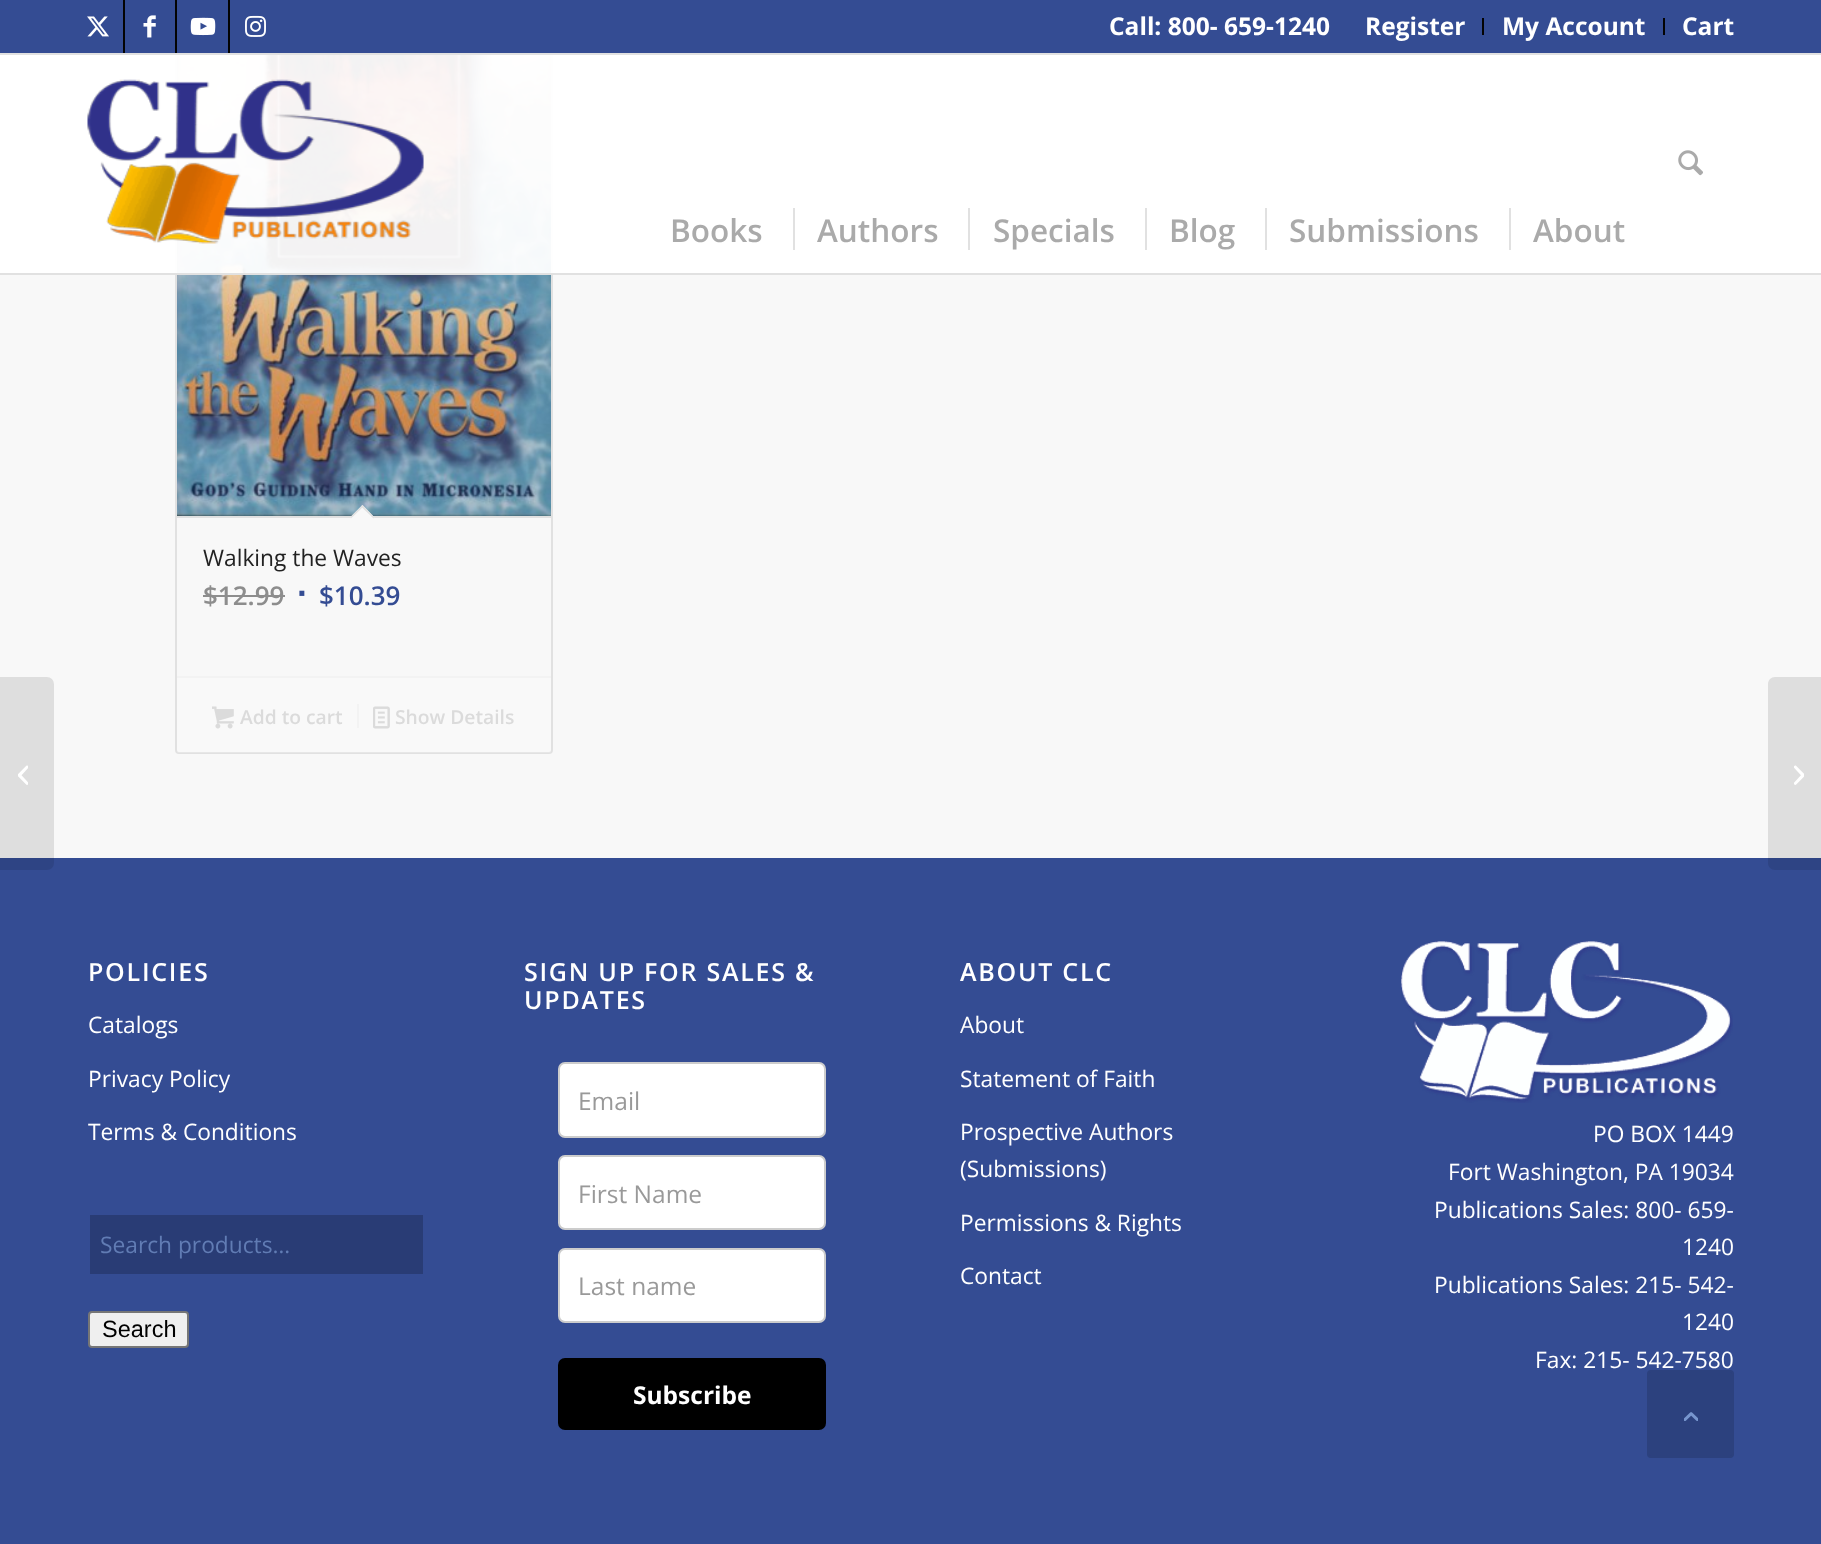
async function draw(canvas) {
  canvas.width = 1821;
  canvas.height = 1544;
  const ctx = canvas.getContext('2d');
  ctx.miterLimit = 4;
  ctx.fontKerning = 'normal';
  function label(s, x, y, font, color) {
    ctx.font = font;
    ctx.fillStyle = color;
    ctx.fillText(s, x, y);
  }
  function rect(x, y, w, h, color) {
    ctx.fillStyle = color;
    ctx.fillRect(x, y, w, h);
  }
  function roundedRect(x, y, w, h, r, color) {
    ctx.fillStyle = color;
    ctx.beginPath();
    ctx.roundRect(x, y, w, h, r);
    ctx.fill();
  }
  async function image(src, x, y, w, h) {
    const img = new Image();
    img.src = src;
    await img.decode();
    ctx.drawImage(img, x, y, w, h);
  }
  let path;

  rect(0, 0, 1821, 1544, '#f8f8f8');
  ctx.beginPath();
  ctx.roundRect(176, -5, 376, 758, 3);
  ctx.strokeStyle = '#e1e1e1';
  ctx.lineWidth = 2;
  ctx.stroke();
  rect(0, 0, 1821, 53, '#344c93');
  rect(0, 53, 1821, 2, '#e1e1e1');
  rect(123, 0, 2, 53, '#030303');
  await image('assets/img1.png', 87, 16, 22, 21);
  rect(175, 0, 2, 53, '#030303');
  await image('assets/img2.png', 143, 15, 13, 23);
  rect(228, 0, 2, 53, '#030303');
  await image('assets/img3.png', 190, 17, 26, 19);
  await image('assets/img4.png', 245, 15, 21, 22);
  label('Call: 800- 659-1240', 1109, 35, 'bold 24.5px Open Sans', '#fff');
  rect(1482, 18, 2, 17, '#030303');
  label('Register', 1365, 35, 'bold 24.5px Open Sans', '#fff');
  rect(1663, 18, 2, 17, '#030303');
  label('My Account', 1502, 35, 'bold 24.5px Open Sans', '#fff');
  label('Cart', 1682, 35, 'bold 24.5px Open Sans', '#fff');
  await image('assets/img8.png', 177, 55, 374, 461);
  rect(0, 55, 1821, 218, '#fffffff2');
  rect(0, 273, 1821, 2, '#e1e1e1');
  await image('assets/img5.png', 87, 79, 337, 165);
  await image('assets/img6.png', 1678, 150, 25, 26);
  label('Books', 670, 242, '600 31.5px Open Sans', '#aaa');
  label('Authors', 817, 242, '600 31.5px Open Sans', '#aaa');
  rect(793, 208, 2, 42, '#e1e1e1');
  label('Specials', 993, 242, '600 31.5px Open Sans', '#aaa');
  rect(968, 208, 2, 42, '#e1e1e1');
  label('Blog', 1169, 242, '600 31.5px Open Sans', '#aaa');
  rect(1145, 208, 2, 42, '#e1e1e1');
  label('Submissions', 1289, 242, '600 31.5px Open Sans', '#aaa');
  rect(1265, 208, 2, 42, '#e1e1e1');
  label('About', 1533, 242, '600 31.5px Open Sans', '#aaa');
  rect(1509, 208, 2, 42, '#e1e1e1');
  rect(0, 858, 1821, 686, '#344c93');
  ctx.fillStyle = '#0000001a';
  ctx.beginPath();
  ctx.roundRect(0, 677, 54, 193, [0, 7, 7, 0]);
  ctx.fill();
  await image('assets/img7.png', 18, 765, 10, 20);
  rect(177, 516, 374, 2, '#e1e1e1');
  ctx.fillStyle = '#f8f8f8';
  path = new Path2D('M362.5 505L374.5 517.5L362.5 530L350 517.5Z');
  ctx.fill(path);
  ctx.fillStyle = '#e1e1e1';
  path = new Path2D('M362.5 505L374.5 517.5L373.5 518.5L361 506.5Z');
  ctx.fill(path);
  path = new Path2D('M362.5 505L363.5 506.5L351 518.5L350 517.5Z');
  ctx.fill(path);
  label('Walking the Waves', 203, 566, '22.75px Open Sans', '#222');
  label('$12.99', 203, 605, '600 26px Open Sans', '#8d8d8d');
  rect(203, 595, 82, 2, '#8d8d8d');
  label('∙', 297, 605, 'bold 35px Liberation Sans', '#344c93');
  label('$10.39', 319, 605, '600 26px Open Sans', '#344c93');
  ctx.fillStyle = '#ffffff33';
  ctx.beginPath();
  ctx.roundRect(177, 676, 374, 77, [0, 0, 2, 2]);
  ctx.fill();
  rect(177, 676, 374, 2, '#f3f3f3');
  await image('assets/img9.png', 212, 706, 22, 23);
  label('Add to cart', 240, 724, '600 19.25px Open Sans', '#dbdbdb');
  rect(357, 704, 2, 24, '#f3f3f3');
  await image('assets/img10.png', 373, 706, 17, 23);
  label('Show Details', 395, 724, '600 19.25px Open Sans', '#dbdbdb');
  ctx.letterSpacing = '1.75px';
  label('POLICIES', 88, 981, '600 25px Open Sans', '#fff');
  ctx.letterSpacing = '0px';
  label('Catalogs', 88, 1033, '22.75px Open Sans', '#fff');
  label('Privacy Policy', 88, 1087, '22.75px Open Sans', '#fff');
  ctx.save();
  ctx.beginPath();
  ctx.rect(88, 938, 337, 222);
  ctx.clip();
  label('Terms & Conditions', 88, 1140, '22.75px Open Sans', '#fff');
  ctx.restore();
  rect(90, 1215, 333, 59, '#293c75');
  label('Search products…', 100, 1253, '22.75px Open Sans', '#617cb4');
  ctx.fillStyle = '#efefef';
  ctx.beginPath();
  ctx.roundRect(89, 1312, 99, 35, 3);
  ctx.fill();
  ctx.strokeStyle = '#767676';
  ctx.stroke();
  label('Search', 102, 1337, '23.5px Liberation Sans', '#000');
  ctx.letterSpacing = '1.75px';
  label('SIGN UP FOR SALES &', 524, 981, '600 25px Open Sans', '#fff');
  label('UPDATES', 524, 1009, '600 25px Open Sans', '#fff');
  ctx.beginPath();
  ctx.roundRect(559, 1063, 266, 74, 6);
  ctx.fill();
  ctx.strokeStyle = '#ccc';
  ctx.stroke();
  ctx.letterSpacing = '0px';
  label('Email', 578, 1110, '24.5px Open Sans', '#999');
  ctx.fillStyle = '#fff';
  ctx.beginPath();
  ctx.roundRect(559, 1156, 266, 73, 6);
  ctx.fill();
  ctx.stroke();
  label('First Name', 578, 1203, '24.5px Open Sans', '#999');
  ctx.fillStyle = '#fff';
  ctx.beginPath();
  ctx.roundRect(559, 1249, 266, 73, 6);
  ctx.fill();
  ctx.stroke();
  label('Last name', 578, 1295, '24.5px Open Sans', '#999');
  roundedRect(558, 1358, 268, 72, 7, '#000');
  label('Subscribe', 633, 1404, 'bold 24.5px Open Sans', '#fff');
  ctx.letterSpacing = '1.75px';
  label('ABOUT CLC', 960, 981, '600 25px Open Sans', '#fff');
  ctx.letterSpacing = '0px';
  label('About', 960, 1033, '22.75px Open Sans', '#fff');
  label('Statement of Faith', 960, 1087, '22.75px Open Sans', '#fff');
  label('Prospective Authors', 960, 1140, '22.75px Open Sans', '#fff');
  label('(Submissions)', 960, 1177, '22.75px Open Sans', '#fff');
  label('Permissions & Rights', 960, 1231, '22.75px Open Sans', '#fff');
  label('Contact', 960, 1284, '22.75px Open Sans', '#fff');
  await image('assets/img11.png', 1401, 941, 332, 162);
  label('PO BOX 1449', 1593, 1142, '22.75px Open Sans', '#fff');
  label('Fort Washington, PA 19034', 1448, 1180, '22.75px Open Sans', '#fff');
  label('Publications Sales: 800- 659-', 1434, 1218, '22.75px Open Sans', '#fff');
  label('1240', 1682, 1255, '22.75px Open Sans', '#fff');
  label('Publications Sales: 215- 542-', 1434, 1293, '22.75px Open Sans', '#fff');
  label('1240', 1682, 1330, '22.75px Open Sans', '#fff');
  label('Fax: 215- 542-7580', 1535, 1368, '22.75px Open Sans', '#fff');
  ctx.fillStyle = '#0000001a';
  path = new Path2D('M1775 677H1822V870H1775C1771 870 1768 867 1768 863V684C1768 680 1771 677 1775 677Z');
  ctx.fill(path);
  await image('assets/img12.png', 1794, 765, 10, 20);
  ctx.fillStyle = '#2c417e';
  ctx.beginPath();
  ctx.roundRect(1648, 1371, 85, 86, 3);
  ctx.fill();
  ctx.strokeStyle = '#2c417e';
  ctx.stroke();
  await image('assets/img13.png', 1684, 1412, 14, 9);
}

draw(document.querySelector('canvas'));
